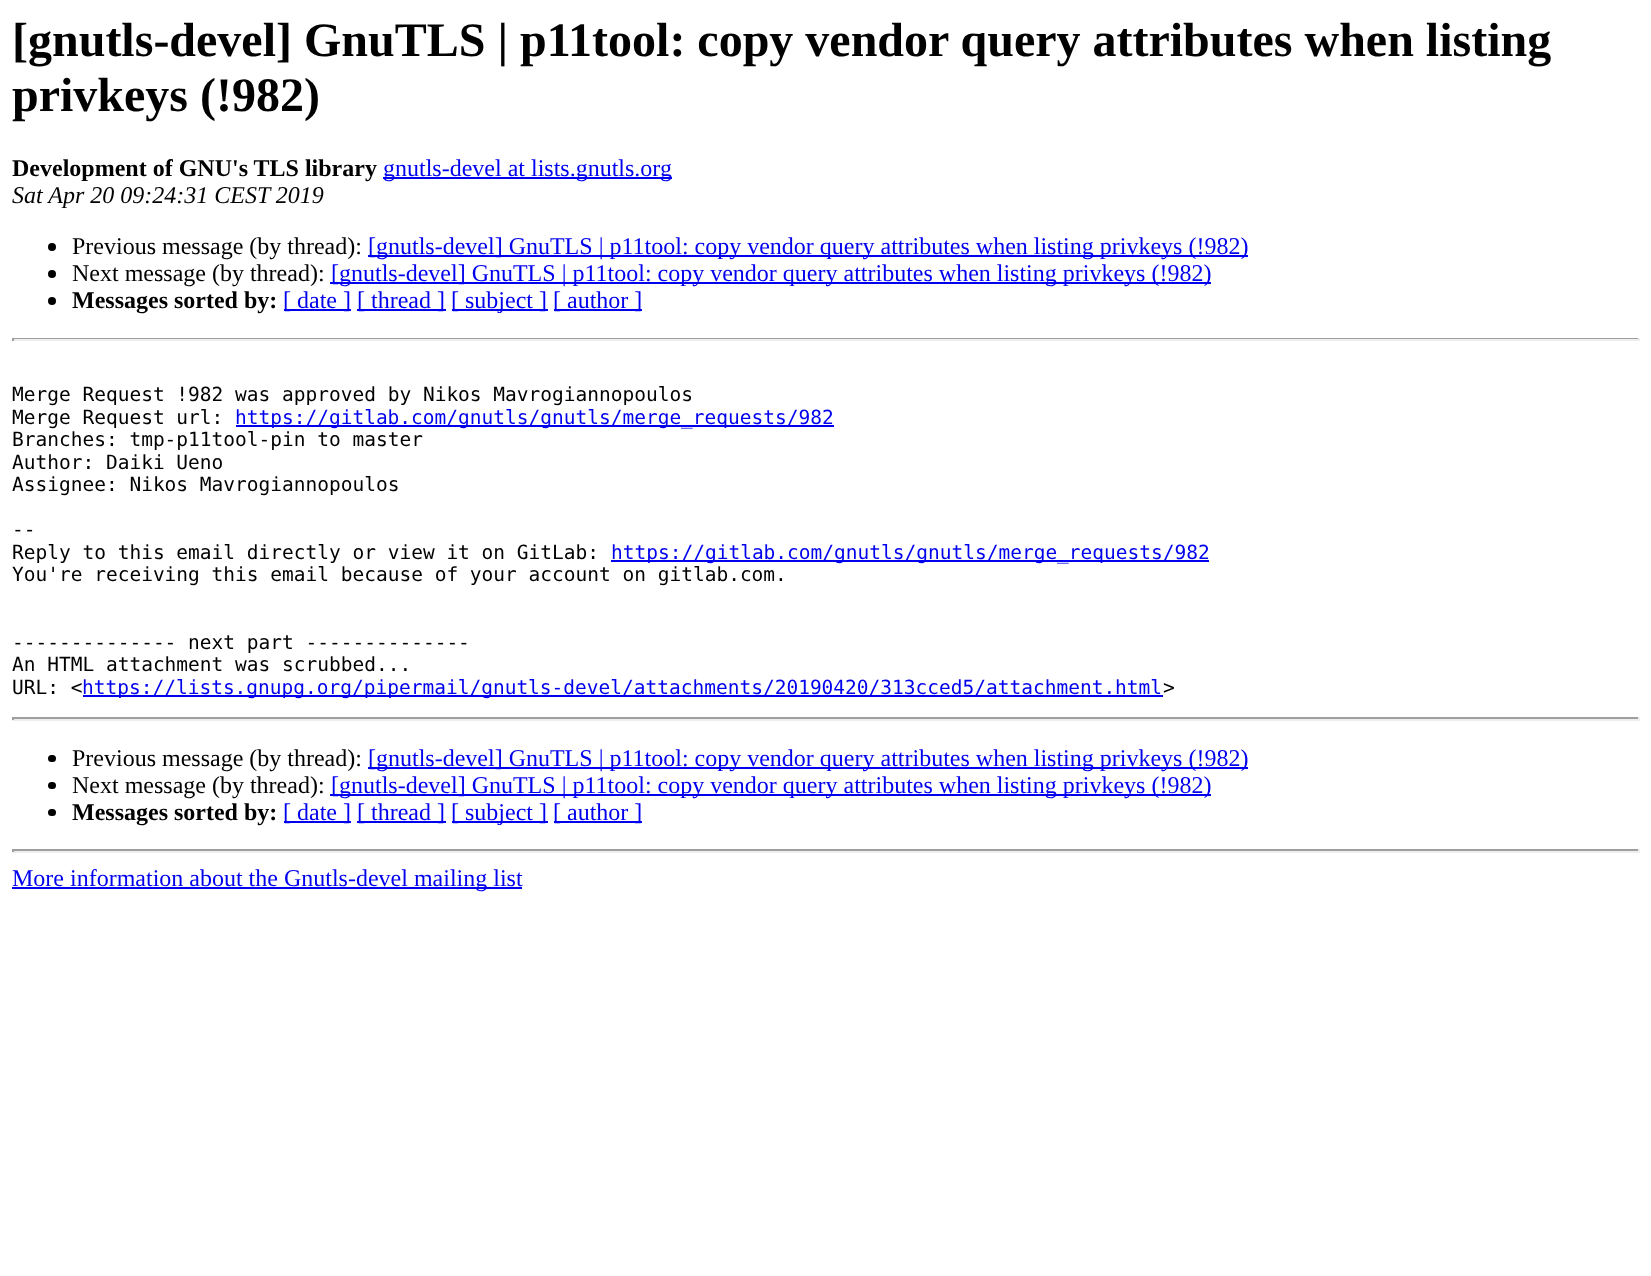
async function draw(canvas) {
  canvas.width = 1651;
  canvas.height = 1276;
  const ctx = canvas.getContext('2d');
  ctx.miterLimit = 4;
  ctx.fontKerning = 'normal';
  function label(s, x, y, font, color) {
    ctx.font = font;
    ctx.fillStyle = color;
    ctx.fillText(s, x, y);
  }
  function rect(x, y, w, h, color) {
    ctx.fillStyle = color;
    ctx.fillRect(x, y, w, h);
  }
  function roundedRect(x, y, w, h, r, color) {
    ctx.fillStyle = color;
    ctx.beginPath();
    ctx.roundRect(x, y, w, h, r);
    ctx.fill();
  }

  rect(0, 0, 1651, 1276, '#fff');
  label('[gnutls-devel] GnuTLS | p11tool: copy vendor query attributes when listing', 12, 56, 'bold 48px Liberation Serif', '#000');
  label('privkeys (!982)', 12, 111, 'bold 48px Liberation Serif', '#000');
  label('Development of GNU\'s TLS library', 12, 176, 'bold 24px Liberation Serif', '#000');
  rect(383, 177, 289, 2, '#00e');
  label('gnutls-devel at lists.gnutls.org', 383, 176, '24px Liberation Serif', '#00e');
  label('Sat Apr 20 09:24:31 CEST 2019', 12, 203, 'italic 24px Liberation Serif', '#000');
  ctx.beginPath();
  ctx.arc(52, 247, 4, 0, 2 * Math.PI);
  ctx.fill();
  label('Previous message (by thread):', 72, 254, '24px Liberation Serif', '#000');
  rect(368, 255, 880, 2, '#00e');
  label('[gnutls-devel] GnuTLS | p11tool: copy vendor query attributes when listing privkeys (!982)', 368, 254, '24px Liberation Serif', '#00e');
  ctx.fillStyle = '#000';
  ctx.beginPath();
  ctx.arc(52, 274, 4, 0, 2 * Math.PI);
  ctx.fill();
  label('Next message (by thread):', 72, 281, '24px Liberation Serif', '#000');
  rect(330, 282, 881, 2, '#00e');
  label('[gnutls-devel] GnuTLS | p11tool: copy vendor query attributes when listing privkeys (!982)', 331, 281, '24px Liberation Serif', '#00e');
  ctx.fillStyle = '#000';
  ctx.beginPath();
  ctx.arc(52, 301, 4, 0, 2 * Math.PI);
  ctx.fill();
  label('Messages sorted by:', 72, 308, 'bold 24px Liberation Serif', '#000');
  rect(284, 309, 67, 2, '#00e');
  label('[ date ]', 283, 308, '24px Liberation Serif', '#00e');
  rect(357, 309, 89, 2, '#00e');
  label('[ thread ]', 357, 308, '24px Liberation Serif', '#00e');
  rect(452, 309, 96, 2, '#00e');
  label('[ subject ]', 451, 308, '24px Liberation Serif', '#00e');
  rect(554, 309, 88, 2, '#00e');
  label('[ author ]', 553, 308, '24px Liberation Serif', '#00e');
  rect(12, 338, 1628, 1, '#9f9f9f');
  rect(1638, 338, 2, 3, '#eee');
  rect(12, 339, 1628, 2, '#eee');
  rect(12, 338, 2, 3, '#9f9f9f');
  label('Merge Request !982 was approved by Nikos Mavrogiannopoulos', 12, 401, '19.5px DejaVu Sans Mono', '#000');
  label('Merge Request url:', 12, 424, '19.5px DejaVu Sans Mono', '#000');
  rect(236, 425, 598, 2, '#00e');
  label('https://gitlab.com/gnutls/gnutls/merge_requests/982', 235, 424, '19.5px DejaVu Sans Mono', '#00e');
  label('Branches: tmp-p11tool-pin to master', 12, 446, '19.5px DejaVu Sans Mono', '#000');
  label('Author: Daiki Ueno', 12, 469, '19.5px DejaVu Sans Mono', '#000');
  label('Assignee: Nikos Mavrogiannopoulos', 12, 491, '19.5px DejaVu Sans Mono', '#000');
  label('--', 12, 536, '19.5px DejaVu Sans Mono', '#000');
  label('Reply to this email directly or view it on GitLab:', 12, 559, '19.5px DejaVu Sans Mono', '#000');
  rect(611, 560, 598, 2, '#00e');
  label('https://gitlab.com/gnutls/gnutls/merge_requests/982', 611, 559, '19.5px DejaVu Sans Mono', '#00e');
  label('You\'re receiving this email because of your account on gitlab.com.', 12, 581, '19.5px DejaVu Sans Mono', '#000');
  label('-------------- next part --------------', 12, 649, '19.5px DejaVu Sans Mono', '#000');
  label('An HTML attachment was scrubbed...', 12, 671, '19.5px DejaVu Sans Mono', '#000');
  label('URL: <', 12, 694, '19.5px DejaVu Sans Mono', '#000');
  rect(83, 695, 1080, 2, '#00e');
  label('https://lists.gnupg.org/pipermail/gnutls-devel/attachments/20190420/313cced5/attachment.html', 82, 694, '19.5px DejaVu Sans Mono', '#00e');
  label('>', 1163, 694, '19.5px DejaVu Sans Mono', '#000');
  rect(12, 717, 1628, 2, '#9f9f9f');
  rect(1638, 717, 2, 3, '#eee');
  rect(12, 719, 1628, 2, '#eee');
  rect(12, 717, 2, 3, '#9f9f9f');
  roundedRect(48, 755, 8, 7, 3.5, '#000');
  label('Previous message (by thread):', 72, 766, '24px Liberation Serif', '#000');
  rect(368, 767, 880, 2, '#00e');
  label('[gnutls-devel] GnuTLS | p11tool: copy vendor query attributes when listing privkeys (!982)', 368, 766, '24px Liberation Serif', '#00e');
  roundedRect(48, 782, 8, 7, 3.5, '#000');
  label('Next message (by thread):', 72, 793, '24px Liberation Serif', '#000');
  rect(330, 794, 881, 2, '#00e');
  label('[gnutls-devel] GnuTLS | p11tool: copy vendor query attributes when listing privkeys (!982)', 331, 793, '24px Liberation Serif', '#00e');
  roundedRect(48, 809, 8, 7, 3.5, '#000');
  label('Messages sorted by:', 72, 820, 'bold 24px Liberation Serif', '#000');
  rect(284, 821, 67, 2, '#00e');
  label('[ date ]', 283, 820, '24px Liberation Serif', '#00e');
  rect(357, 821, 89, 2, '#00e');
  label('[ thread ]', 357, 820, '24px Liberation Serif', '#00e');
  rect(452, 821, 96, 2, '#00e');
  label('[ subject ]', 451, 820, '24px Liberation Serif', '#00e');
  rect(554, 821, 88, 2, '#00e');
  label('[ author ]', 553, 820, '24px Liberation Serif', '#00e');
  rect(12, 849, 1628, 2, '#9f9f9f');
  rect(1638, 849, 2, 3, '#eee');
  rect(12, 851, 1628, 2, '#eee');
  rect(12, 849, 2, 3, '#9f9f9f');
  rect(12, 887, 510, 2, '#00e');
  label('More information about the Gnutls-devel mailing list', 12, 886, '24px Liberation Serif', '#00e');
}

draw(document.querySelector('canvas'));
